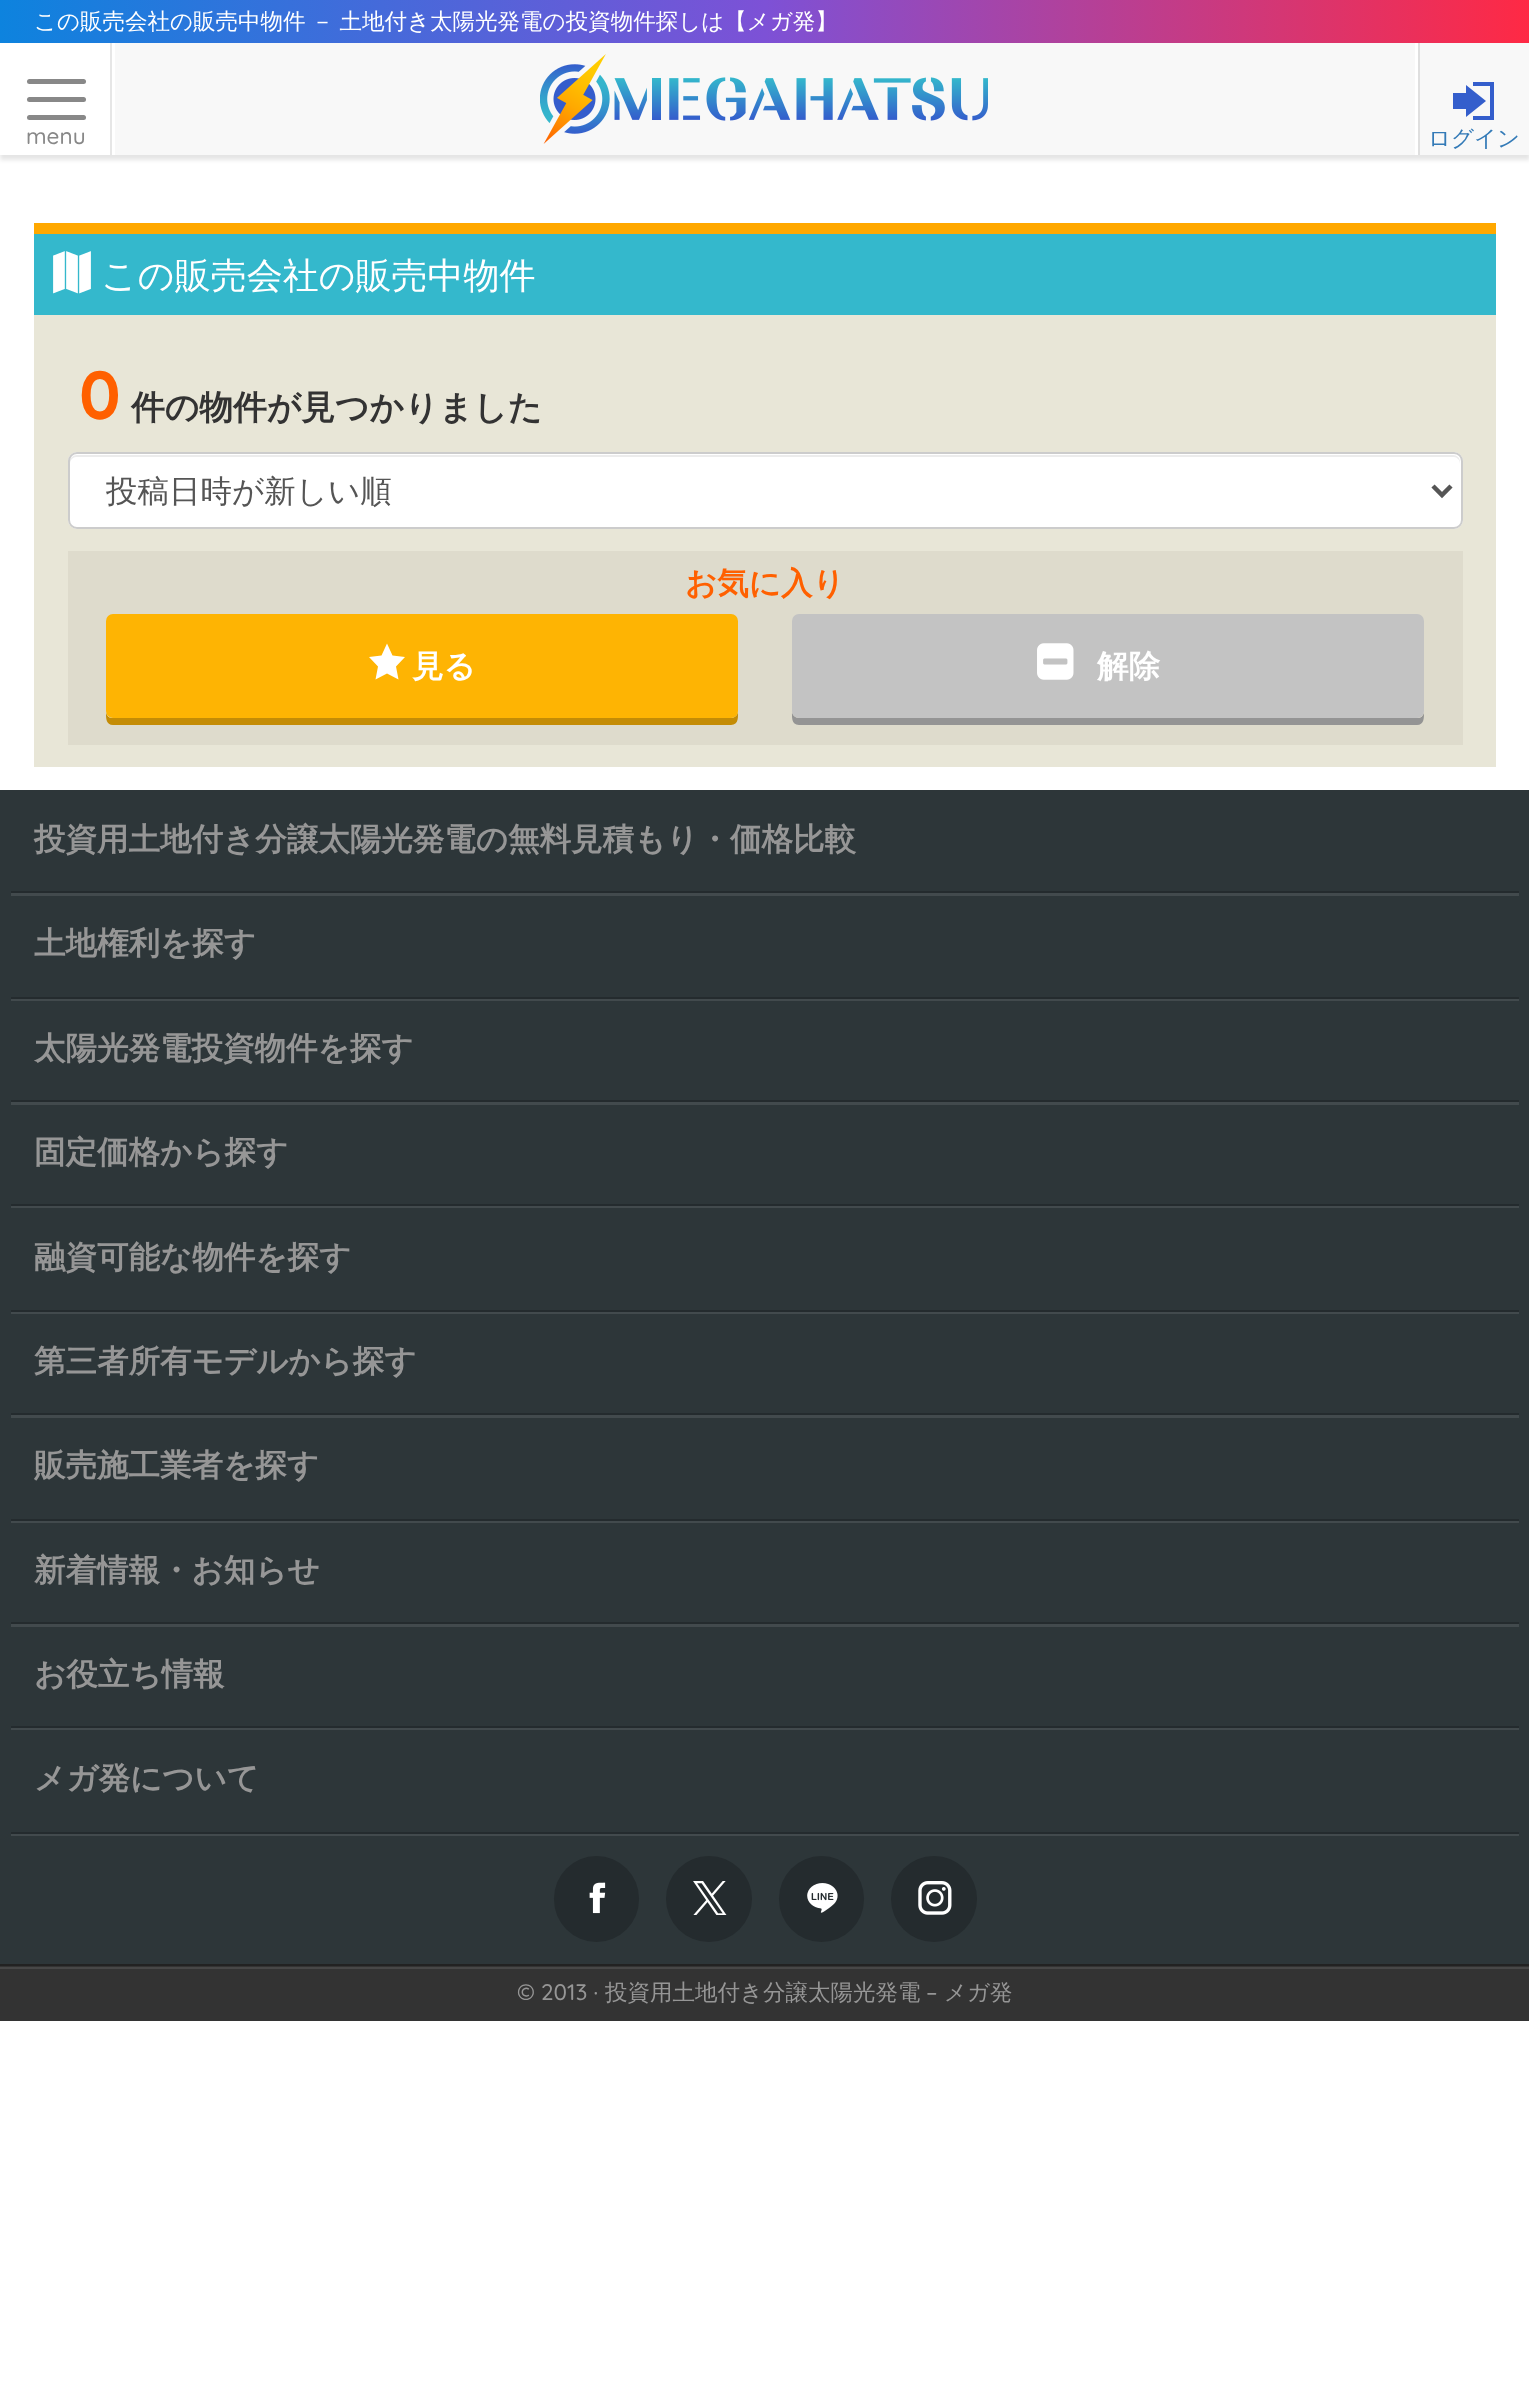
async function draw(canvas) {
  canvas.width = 1529;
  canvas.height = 2397;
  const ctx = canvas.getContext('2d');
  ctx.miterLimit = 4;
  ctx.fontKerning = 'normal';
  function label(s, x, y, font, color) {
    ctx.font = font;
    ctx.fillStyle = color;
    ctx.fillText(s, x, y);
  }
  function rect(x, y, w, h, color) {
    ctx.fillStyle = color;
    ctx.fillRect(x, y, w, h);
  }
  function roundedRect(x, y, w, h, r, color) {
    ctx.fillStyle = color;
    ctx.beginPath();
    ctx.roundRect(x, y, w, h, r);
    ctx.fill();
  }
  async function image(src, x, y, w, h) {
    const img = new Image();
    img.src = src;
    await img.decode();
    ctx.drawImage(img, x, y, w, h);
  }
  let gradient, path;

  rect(0, 0, 1529, 2397, '#fff');
  gradient = ctx.createLinearGradient(0, 21, 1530, 21);
  gradient.addColorStop(0, '#0d83de');
  gradient.addColorStop(0.5, '#7d51d6');
  gradient.addColorStop(1, '#ff2944');
  ctx.fillStyle = gradient;
  ctx.fillRect(0, 0, 1529, 43);
  ctx.wordSpacing = '-1px';
  label('この販売会社の販売中物件 － 土地付き太陽光発電の投資物件探しは【メガ発】', 34, 29, '500 22.5px WenQuanYi Zen Hei', '#fff');
  ctx.fillStyle = '#0000001a';
  ctx.filter = 'blur(2px)';
  ctx.beginPath();
  ctx.rect(0, 47, 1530, 113);
  ctx.fill();
  ctx.filter = 'none';
  rect(0, 44, 113, 111, '#fff');
  roundedRect(27, 97, 59, 5, 2.5, '#888');
  roundedRect(27, 79, 59, 5, 2.5, '#888');
  roundedRect(27, 115, 59, 5, 2.5, '#888');
  rect(115, 43, 1414, 112, '#f8f8f8');
  rect(113, 43, 2, 112, '#fff');
  rect(110, 43, 2, 112, '#e6e6e6');
  ctx.wordSpacing = '0px';
  label('menu', 26, 144, '500 22.5px Quicksand', '#888');
  await image('assets/img1.png', 540, 54, 448, 90);
  rect(1415, 43, 3, 112, '#fff');
  rect(1418, 43, 2, 112, '#dfdfdf');
  ctx.fillStyle = '#345ecc';
  path = new Path2D('M1490 86V116H1473V120H1494V82H1473V86ZM1466 85V93H1453V109H1466V117L1486 101Z');
  ctx.fill(path, 'evenodd');
  label('ログイン', 1428, 146, '500 22.5px WenQuanYi Zen Hei', '#337ab7');
  rect(34, 234, 1462, 81, '#34b8cc');
  rect(34, 223, 1462, 11, '#ffa800');
  await image('assets/img2.png', 53, 251, 38, 43);
  label('この販売会社の販売中物件', 101, 288, '500 36px WenQuanYi Zen Hei', '#fff');
  rect(34, 315, 1462, 452, '#e8e6d7');
  label('0', 79, 419, 'bold 68px Quicksand', '#ff6000');
  label('件の物件が見つかりました', 131, 419, 'bold 33.75px WenQuanYi Zen Hei', '#333');
  roundedRect(68, 452, 1395, 77, 9, '#fff');
  ctx.fillStyle = '#ececec';
  path = new Path2D('M76 457H1454C1457 457 1460 460 1460 464V462C1460 458 1457 455 1453 455H77C73 455 70 458 70 462V464C70 460 73 457 76 457Z');
  ctx.fill(path);
  ctx.beginPath();
  ctx.roundRect(69, 453, 1393, 75, 8);
  ctx.strokeStyle = '#ccc';
  ctx.lineWidth = 2;
  ctx.stroke();
  path = new Path2D('M1433 486L1442 495L1451 486');
  ctx.strokeStyle = '#555';
  ctx.lineWidth = 4.5;
  ctx.stroke(path);
  label('投稿日時が新しい順', 106, 502, '500 31.5px WenQuanYi Zen Hei', '#555');
  rect(68, 551, 1395, 194, '#dedbcc');
  label('お気に入り', 685, 594, 'bold 31.5px WenQuanYi Zen Hei', '#ff6000');
  ctx.fillStyle = '#c48c06';
  path = new Path2D('M106 713C106 718 106 725 113 725H731C739 725 738 716 738 711C738 715 735 718 731 718H112C109 718 107 716 106 713Z');
  ctx.fill(path);
  roundedRect(106, 614, 632, 104, 7, '#feb403');
  ctx.fillStyle = '#fff';
  path = new Path2D('M387 643.5L392.5 655.5L405 657L396 666.5L398.5 679.5L387 673.5L375.5 679.5L378 666.5L369 657L381.5 655.5Z');
  ctx.fill(path, 'evenodd');
  label('見る', 412, 677, 'bold 31.5px WenQuanYi Zen Hei', '#fff');
  ctx.fillStyle = '#949494';
  path = new Path2D('M792 711C792 716 791 725 799 725H1417C1424 725 1424 718 1424 713C1423 716 1421 718 1418 718H799C795 718 792 715 792 711Z');
  ctx.fill(path);
  roundedRect(792, 614, 632, 104, 7, '#c3c3c3');
  await image('assets/img3.png', 1037, 643, 37, 37);
  label('解除', 1097, 677, 'bold 31.5px WenQuanYi Zen Hei', '#fff');
  rect(0, 790, 1529, 1174, '#2d3639');
  ctx.fillStyle = '#424a4d';
  path = new Path2D('M11 792V896H1519V792V893H11Z');
  ctx.fill(path);
  rect(11, 891, 1508, 2, '#242b2e');
  label('投資用土地付き分譲太陽光発電の無料見積もり・価格比較', 34, 850, 'bold 31.5px WenQuanYi Zen Hei', '#969696');
  ctx.fillStyle = '#424a4d';
  path = new Path2D('M11 896V1001H1519V896V999H11Z');
  ctx.fill(path);
  rect(11, 997, 1508, 2, '#242b2e');
  label('土地権利を探す', 34, 954, 'bold 31.5px WenQuanYi Zen Hei', '#969696');
  ctx.fillStyle = '#424a4d';
  path = new Path2D('M11 1001V1105H1519V1001V1102H11Z');
  ctx.fill(path);
  rect(11, 1100, 1508, 2, '#242b2e');
  label('太陽光発電投資物件を探す', 34, 1059, 'bold 31.5px WenQuanYi Zen Hei', '#969696');
  ctx.fillStyle = '#424a4d';
  path = new Path2D('M11 1105V1208H1519V1105V1206H11Z');
  ctx.fill(path);
  rect(11, 1204, 1508, 2, '#242b2e');
  label('固定価格から探す', 34, 1163, 'bold 31.5px WenQuanYi Zen Hei', '#969696');
  ctx.fillStyle = '#424a4d';
  path = new Path2D('M11 1208V1314H1519V1208V1312H11Z');
  ctx.fill(path);
  rect(11, 1310, 1508, 2, '#242b2e');
  label('融資可能な物件を探す', 34, 1268, 'bold 31.5px WenQuanYi Zen Hei', '#969696');
  ctx.fillStyle = '#424a4d';
  path = new Path2D('M11 1314V1418H1519V1314V1415H11Z');
  ctx.fill(path);
  rect(11, 1413, 1508, 2, '#242b2e');
  label('第三者所有モデルから探す', 34, 1372, 'bold 31.5px WenQuanYi Zen Hei', '#969696');
  ctx.fillStyle = '#424a4d';
  path = new Path2D('M11 1418V1523H1519V1418V1521H11Z');
  ctx.fill(path);
  rect(11, 1519, 1508, 2, '#242b2e');
  label('販売施工業者を探す', 34, 1476, 'bold 31.5px WenQuanYi Zen Hei', '#969696');
  ctx.fillStyle = '#424a4d';
  path = new Path2D('M11 1523V1627H1519V1523V1624H11Z');
  ctx.fill(path);
  rect(11, 1622, 1508, 2, '#242b2e');
  label('新着情報・お知らせ', 34, 1581, 'bold 31.5px WenQuanYi Zen Hei', '#969696');
  ctx.fillStyle = '#424a4d';
  path = new Path2D('M11 1627V1730H1519V1627V1728H11Z');
  ctx.fill(path);
  rect(11, 1726, 1508, 2, '#242b2e');
  label('お役立ち情報', 34, 1685, 'bold 31.5px WenQuanYi Zen Hei', '#969696');
  ctx.fillStyle = '#424a4d';
  path = new Path2D('M11 1730V1836H1519V1730V1834H11Z');
  ctx.fill(path);
  rect(11, 1832, 1508, 2, '#242b2e');
  label('メガ発について', 34, 1789, 'bold 31.5px WenQuanYi Zen Hei', '#969696');
  roundedRect(554, 1856, 85, 86, 42.5, '#242b2e');
  await image('assets/img4.png', 589, 1882, 17, 32);
  ctx.beginPath();
  ctx.arc(709, 1899, 43, 0, 2 * Math.PI);
  ctx.fill();
  await image('assets/img5.png', 693, 1881, 34, 34);
  roundedRect(779, 1856, 85, 86, 42.5, '#242b2e');
  await image('assets/img6.png', 807, 1883, 31, 30);
  ctx.beginPath();
  ctx.arc(934, 1899, 43, 0, 2 * Math.PI);
  ctx.fill();
  await image('assets/img7.png', 918, 1881, 34, 34);
  rect(0, 1966, 1529, 55, '#333');
  rect(0, 1967, 1529, 2, '#474747');
  rect(0, 1964, 1529, 2, '#222');
  label('© 2013 ·', 517, 2000, '500 22.5px Quicksand', '#969696');
  label('投資用土地付き分譲太陽光発電', 605, 2000, '500 22.5px WenQuanYi Zen Hei', '#969696');
  label('–', 926, 2000, '500 22.5px Quicksand', '#969696');
  label('メガ発', 944, 2000, '500 22.5px WenQuanYi Zen Hei', '#969696');
}

draw(document.querySelector('canvas'));
